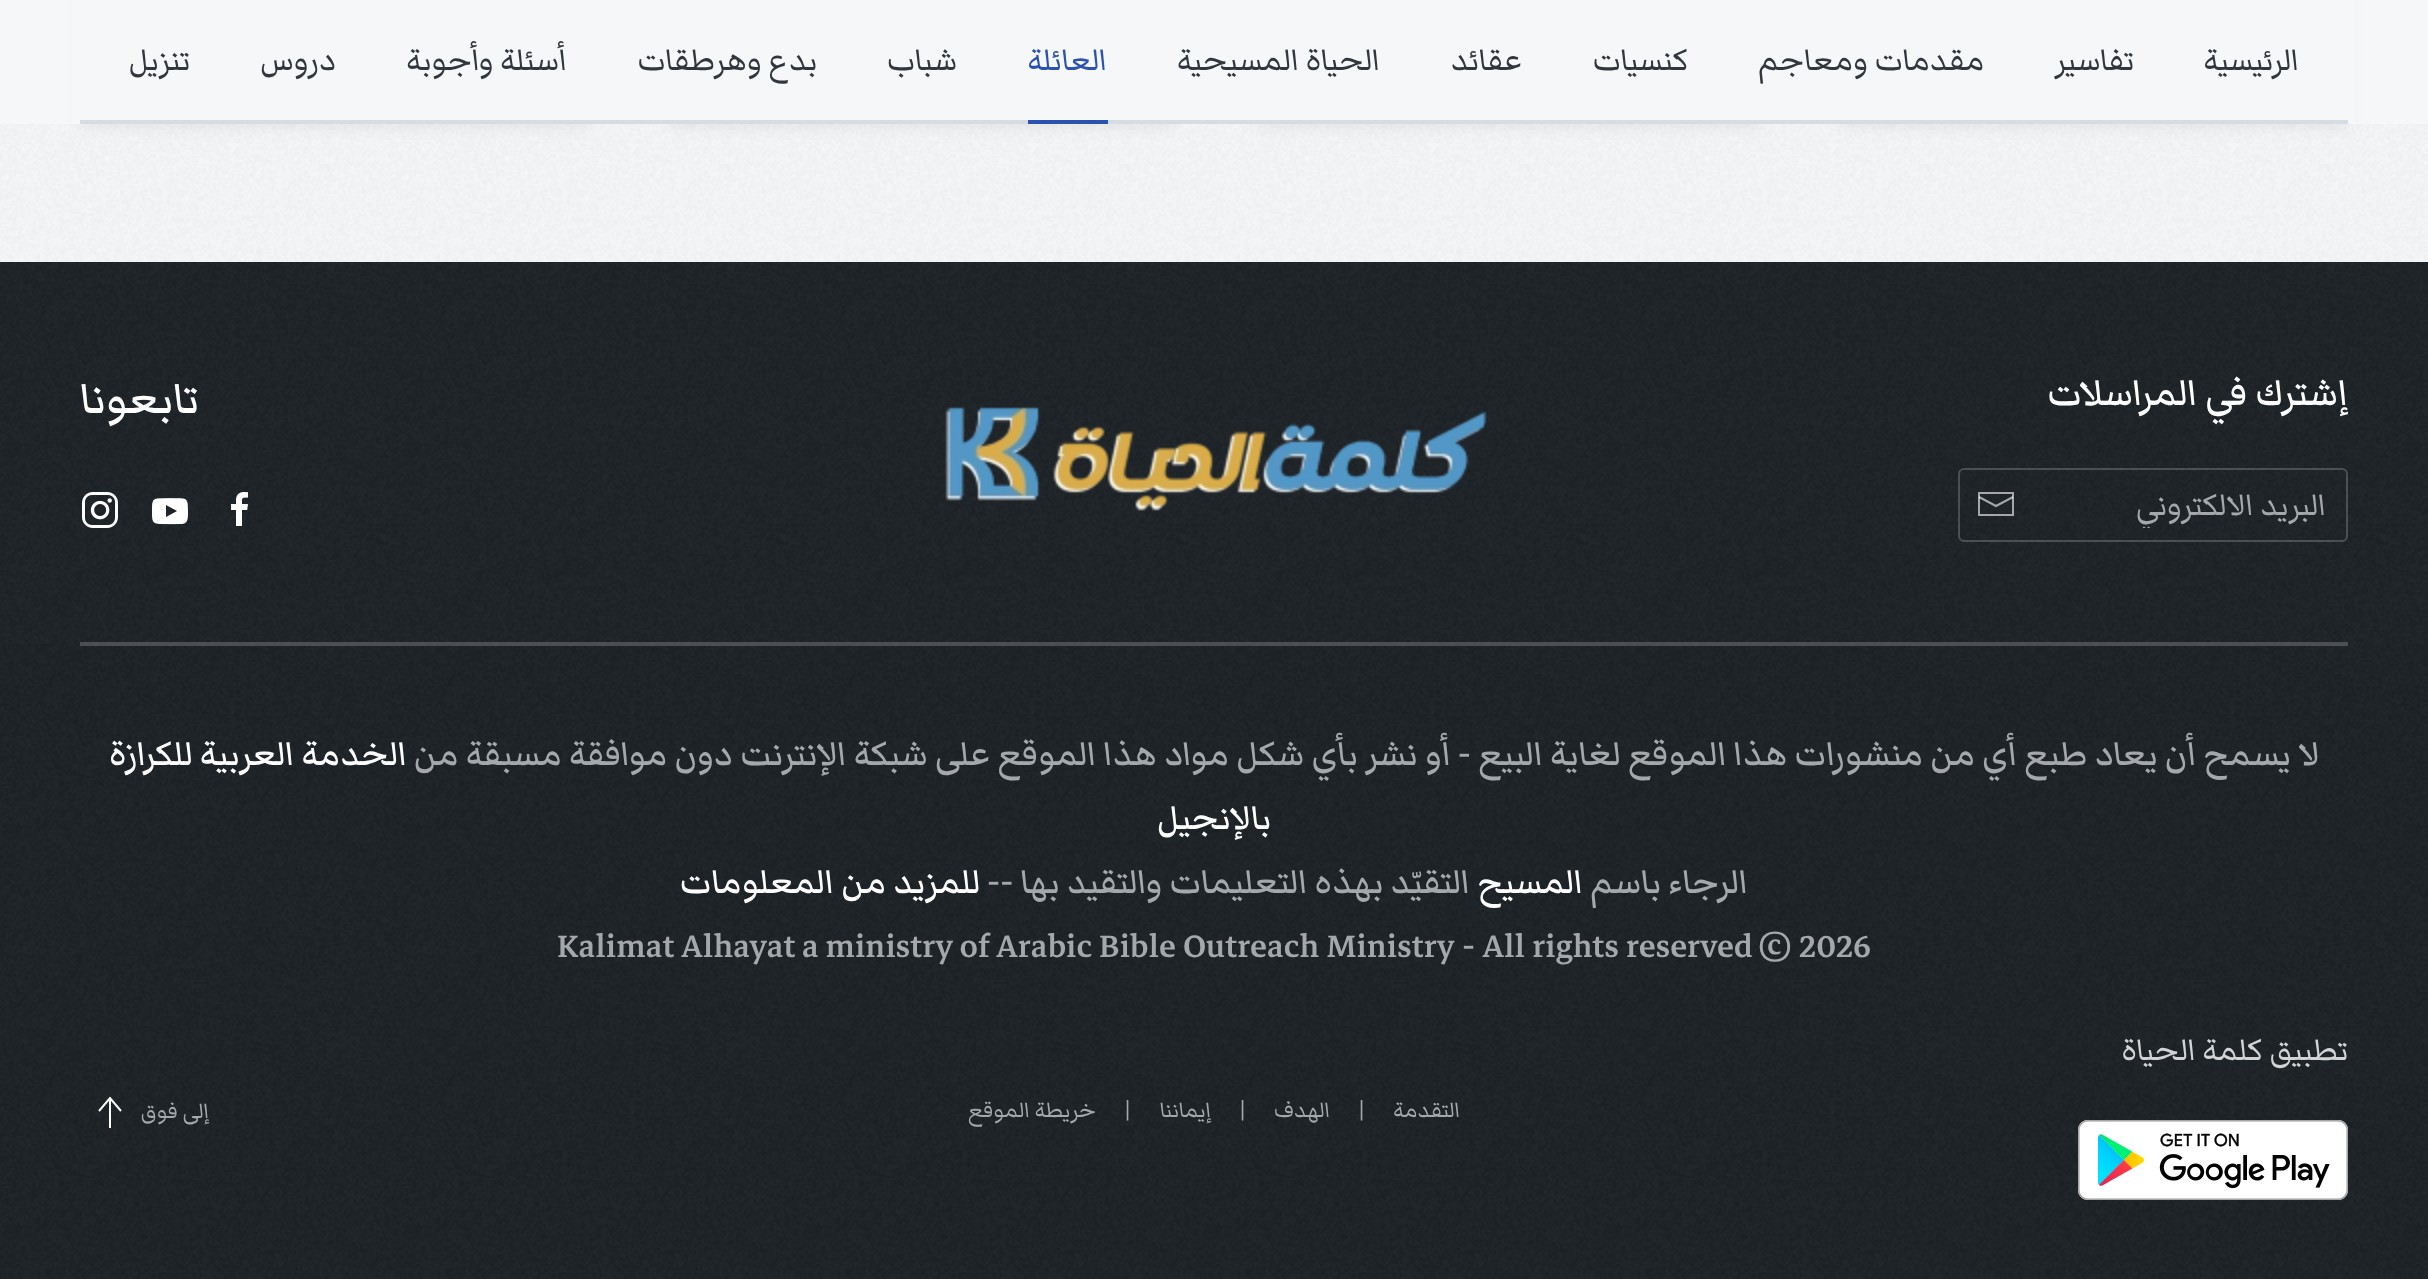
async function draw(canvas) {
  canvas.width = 2428;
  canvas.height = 1279;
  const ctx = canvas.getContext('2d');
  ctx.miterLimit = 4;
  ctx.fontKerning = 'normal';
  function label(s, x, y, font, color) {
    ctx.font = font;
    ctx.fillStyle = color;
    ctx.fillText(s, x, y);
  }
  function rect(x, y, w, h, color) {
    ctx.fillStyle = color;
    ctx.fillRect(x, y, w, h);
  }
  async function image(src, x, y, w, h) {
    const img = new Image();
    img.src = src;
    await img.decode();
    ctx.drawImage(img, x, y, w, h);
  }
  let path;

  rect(0, 0, 2428, 1279, '#f5f7f9');
  await image('assets/img1.png', 0, 124, 2428, 138);
  ctx.fillStyle = '#00000012';
  ctx.filter = 'blur(8px)';
  ctx.beginPath();
  ctx.rect(1842, -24, 506, 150);
  ctx.fill();
  ctx.filter = 'none';
  ctx.filter = 'blur(8px)';
  ctx.beginPath();
  ctx.rect(1254, -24, 508, 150);
  ctx.fill();
  ctx.filter = 'none';
  ctx.filter = 'blur(8px)';
  ctx.beginPath();
  ctx.rect(668, -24, 506, 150);
  ctx.fill();
  ctx.filter = 'none';
  ctx.filter = 'blur(8px)';
  ctx.beginPath();
  ctx.rect(80, -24, 508, 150);
  ctx.fill();
  ctx.filter = 'none';
  rect(72, 0, 2284, 124, '#f5f7f9');
  rect(80, 120, 2268, 4, '#d5dde4');
  ctx.direction = 'rtl';
  label('الرئيسية', 2299, 70, '40px Markazi Text', '#31373d');
  label('تفاسير', 2134, 70, '40px Markazi Text', '#31373d');
  label('مقدمات ومعاجم', 1984, 70, '40px Markazi Text', '#31373d');
  label('كنسيات', 1688, 70, '40px Markazi Text', '#31373d');
  label('عقائد', 1522, 70, '40px Markazi Text', '#31373d');
  label('الحياة المسيحية', 1380, 70, '40px Markazi Text', '#31373d');
  label('العائلة', 1107, 70, '40px Markazi Text', '#2c52b0');
  rect(1028, 120, 80, 4, '#2c52b0');
  label('شباب', 957, 70, '40px Markazi Text', '#31373d');
  label('بدع وهرطقات', 817, 70, '40px Markazi Text', '#31373d');
  label('أسئلة وأجوبة', 567, 70, '40px Markazi Text', '#31373d');
  label('دروس', 336, 70, '40px Markazi Text', '#31373d');
  label('تنزيل', 190, 70, '40px Markazi Text', '#31373d');
  rect(0, 262, 2428, 1017, '#1c2227');
  await image('assets/img2.png', 0, 262, 2428, 382);
  label('إشترك في المراسلات', 2348, 405, '500 48px Markazi Text', '#fff');
  ctx.beginPath();
  ctx.roundRect(1959, 469, 388, 72, 5);
  ctx.strokeStyle = '#ffffff33';
  ctx.lineWidth = 2;
  ctx.stroke();
  ctx.save();
  ctx.beginPath();
  ctx.rect(2034, 480, 292, 48);
  ctx.clip();
  label('البريد الالكتروني', 2326, 515, '40px Markazi Text', '#a5a8aa');
  ctx.restore();
  path = new Path2D('M1979 497L1996 506L2013 497');
  ctx.strokeStyle = '#ffffff99';
  ctx.stroke(path);
  ctx.fillStyle = '#ffffff99';
  path = new Path2D('M1978 492V516H2014V492ZM2012 514H1980V494H2012Z');
  ctx.fill(path);
  await image('assets/img3.png', 945, 407, 542, 104);
  label('تابعونا', 199, 413, '500 56px Markazi Text', '#fff');
  await image('assets/img4.png', 231, 492, 17, 34);
  await image('assets/img5.png', 152, 498, 36, 27);
  await image('assets/img6.png', 82, 492, 36, 36);
  rect(80, 642, 2268, 2, '#ffffff33');
  await image('assets/img7.png', 0, 644, 2428, 635);
  rect(80, 644, 2268, 2, '#ffffff33');
  label('لا يسمح أن يعاد طبع أي من منشورات هذا الموقع لغاية البيع - أو نشر بأي شكل مواد هذا الموقع على شبكة الإنترنت دون موافقة مسبقة من', 2319, 765, '500 44px Markazi Text', '#a5a8aa');
  label('الخدمة العربية للكرازة', 407, 765, '500 44px Markazi Text', '#fff');
  label('بالإنجيل', 1271, 829, '500 44px Markazi Text', '#fff');
  label('الرجاء باسم', 1748, 893, '500 44px Markazi Text', '#a5a8aa');
  label('المسيح', 1583, 893, '500 44px Markazi Text', '#fff');
  label('التقيّد بهذه التعليمات والتقيد بها --', 1470, 893, '500 44px Markazi Text', '#a5a8aa');
  label('للمزيد من المعلومات', 980, 893, '500 44px Markazi Text', '#fff');
  ctx.direction = 'ltr';
  label('2026', 1799, 957, '500 44px Markazi Text', '#a5a8aa');
  label('©', 1758, 957, '500 44px Markazi Text', '#a5a8aa');
  label('- All rights reserved', 1462, 957, '500 44px Markazi Text', '#a5a8aa');
  label('Arabic Bible Outreach Ministry', 996, 957, '500 44px Markazi Text', '#a5a8aa');
  ctx.wordSpacing = '-0.5px';
  label('Kalimat Alhayat a ministry of', 557, 957, '500 44px Markazi Text', '#a5a8aa');
  ctx.wordSpacing = '0px';
  ctx.direction = 'rtl';
  label('تطبيق كلمة الحياة', 2348, 1060, '40px Markazi Text', '#d2d3d4');
  await image('assets/img8.png', 2078, 1120, 270, 80);
  label('التقدمة', 1460, 1117, '28px Markazi Text', '#a5a8aa');
  ctx.direction = 'ltr';
  label('|', 1358, 1117, '28px Markazi Text', '#a5a8aa');
  ctx.direction = 'rtl';
  label('الهدف', 1330, 1117, '28px Markazi Text', '#a5a8aa');
  ctx.direction = 'ltr';
  label('|', 1239, 1117, '28px Markazi Text', '#a5a8aa');
  ctx.direction = 'rtl';
  label('إيماننا', 1211, 1117, '28px Markazi Text', '#a5a8aa');
  ctx.direction = 'ltr';
  label('|', 1124, 1117, '28px Markazi Text', '#a5a8aa');
  ctx.direction = 'rtl';
  label('خريطة الموقع', 1096, 1117, '28px Markazi Text', '#a5a8aa');
  label('إلى فوق', 209, 1118, '28px Markazi Text', '#a5a8aa');
  path = new Path2D('M99 1111L110 1098L121 1111');
  ctx.strokeStyle = '#fff';
  ctx.stroke(path);
  rect(109, 1100, 2, 28, '#fff');
}

draw(document.querySelector('canvas'));
